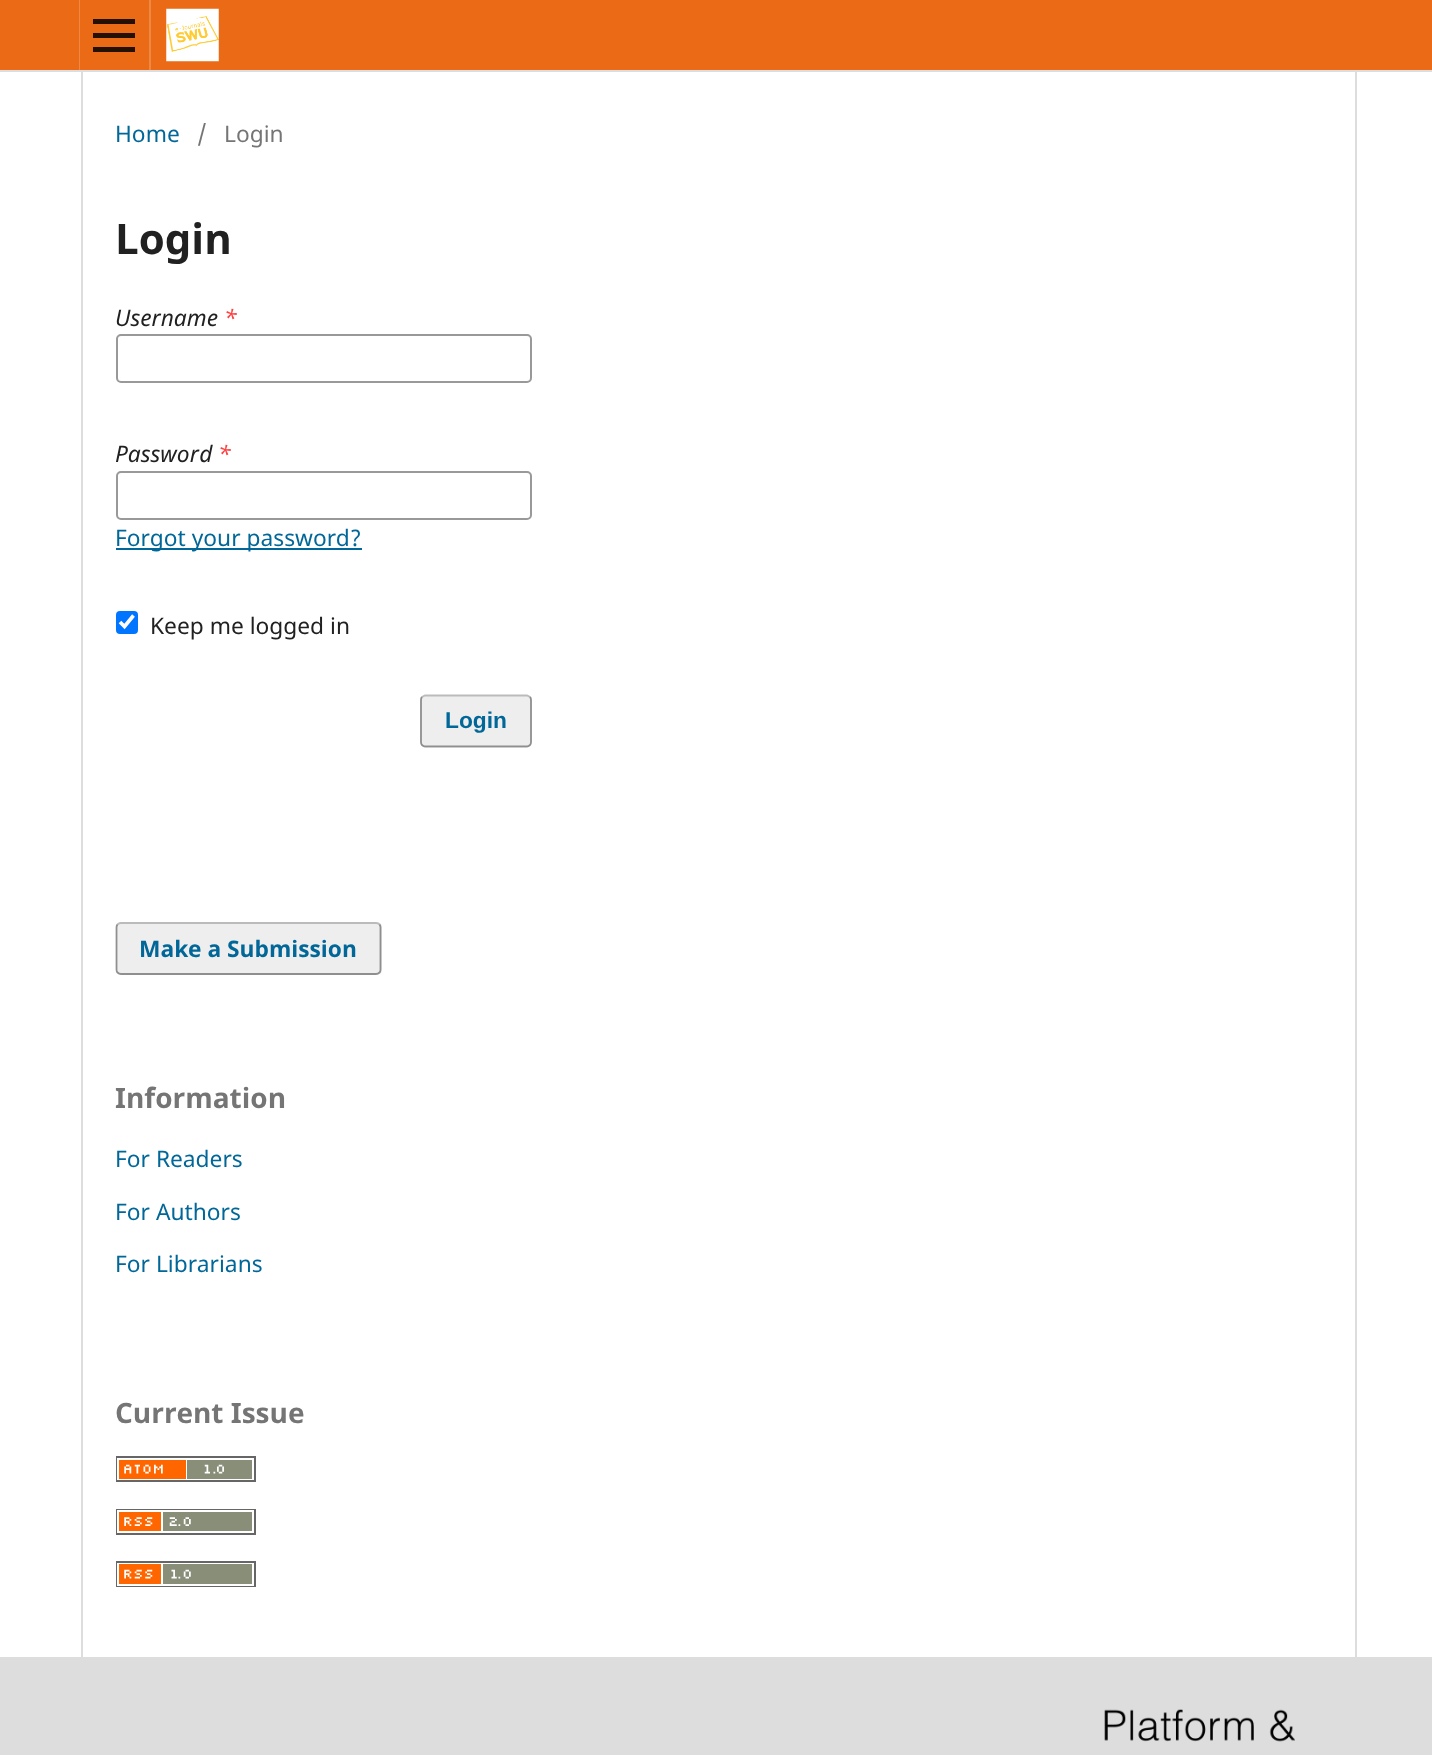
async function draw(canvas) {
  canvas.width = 1432;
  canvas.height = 1755;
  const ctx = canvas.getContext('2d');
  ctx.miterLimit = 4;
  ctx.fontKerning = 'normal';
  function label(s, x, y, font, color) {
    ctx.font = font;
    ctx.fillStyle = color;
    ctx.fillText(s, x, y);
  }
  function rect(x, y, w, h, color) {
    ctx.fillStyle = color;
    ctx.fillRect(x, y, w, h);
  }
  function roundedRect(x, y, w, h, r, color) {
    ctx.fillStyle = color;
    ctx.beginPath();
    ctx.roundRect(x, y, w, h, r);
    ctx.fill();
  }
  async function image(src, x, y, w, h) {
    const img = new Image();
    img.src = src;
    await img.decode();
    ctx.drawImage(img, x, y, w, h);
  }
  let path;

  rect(0, 0, 1432, 1755, '#fff');
  rect(0, 0, 1432, 70, '#ea6a15');
  rect(0, 70, 1432, 2, '#ddd');
  rect(79, 0, 1, 70, '#e84');
  rect(149, 0, 2, 70, '#e84');
  rect(93, 47, 42, 5, '#251103');
  rect(93, 19, 42, 5, '#251103');
  rect(93, 33, 42, 5, '#251103');
  await image('assets/img1.png', 166, 8, 53, 54);
  rect(81, 72, 2, 1585, '#ddd');
  label('Home', 115, 142, '22.75px Noto Sans', '#006798');
  label('/', 197, 142, '22.75px Noto Sans', '#757575');
  label('Login', 224, 142, '22.75px Noto Sans', '#757575');
  label('Login', 115, 254, 'bold 42px Noto Sans', '#212121');
  label('Username', 115, 326, 'italic 22.75px Noto Sans', '#212121');
  label('*', 224, 326, 'italic 22.75px Noto Sans', '#ff4040');
  ctx.beginPath();
  ctx.roundRect(117, 335, 414, 47, 4);
  ctx.strokeStyle = '#999';
  ctx.lineWidth = 2;
  ctx.stroke();
  label('Password', 115, 462, 'italic 22.75px Noto Sans', '#212121');
  label('*', 218, 462, 'italic 22.75px Noto Sans', '#ff4040');
  ctx.beginPath();
  ctx.roundRect(117, 472, 414, 47, 4);
  ctx.stroke();
  rect(116, 548, 246, 2, '#006798');
  label('Forgot your password?', 115, 546, '22.75px Noto Sans', '#006798');
  roundedRect(116, 611, 22, 23, 4, '#0075ff');
  path = new Path2D('M120 622L124.5 626.5L133.5 615.5');
  ctx.strokeStyle = '#fff';
  ctx.lineWidth = 3.6;
  ctx.stroke(path);
  label('Keep me logged in', 150, 634, '22.75px Noto Sans', '#212121');
  roundedRect(420, 695, 112, 52, 5, '#eee');
  path = new Path2D('M422 697L425 695.5H527L530 697');
  ctx.strokeStyle = '#bbb';
  ctx.lineWidth = 1.8;
  ctx.stroke(path);
  path = new Path2D('M530 697C530.5 697.5 531 699 531 700V742C531 743 530.5 744.5 530 745C529 746 528 746.5 527 746.5H425C424 746.5 423 746 422 745C421.5 744.5 421 743 421 742V700C421 699 421.5 697.5 422 697');
  ctx.strokeStyle = '#00000066';
  ctx.stroke(path);
  label('Login', 445, 728, 'bold 22.75px Liberation Sans', '#006798');
  rect(1355, 72, 2, 1585, '#ddd');
  roundedRect(116, 922, 266, 53, 5, '#eee');
  path = new Path2D('M117.5 924.5C118.5 923.5 119.5 923 121 923H376C377.5 923 378.5 923.5 379.5 924.5');
  ctx.strokeStyle = '#bbb';
  ctx.stroke(path);
  path = new Path2D('M379.5 924.5C380 925 380.5 926.5 380.5 927.5V969.5C380.5 970.5 380 972 379.5 972.5C378.5 973.5 377.5 974 376 974H121C119.5 974 118.5 973.5 117.5 972.5C117 972 116.5 970.5 116.5 969.5V927.5C116.5 926.5 117 925 117.5 924.5');
  ctx.strokeStyle = '#00000066';
  ctx.stroke(path);
  label('Make a Submission', 139, 957, 'bold 22.75px Noto Sans', '#006798');
  label('Information', 115, 1108, 'bold 28px Noto Sans', '#757575');
  label('For Readers', 115, 1167, '22.75px Noto Sans', '#006798');
  label('For Authors', 115, 1220, '22.75px Noto Sans', '#006798');
  label('For Librarians', 115, 1272, '22.75px Noto Sans', '#006798');
  label('Current Issue', 115, 1423, 'bold 28px Noto Sans', '#757575');
  await image('assets/img2.png', 116, 1456, 140, 26);
  await image('assets/img3.png', 116, 1509, 140, 26);
  await image('assets/img4.png', 116, 1561, 140, 26);
  rect(0, 1657, 1432, 98, '#ddd');
  await image('assets/img5.png', 1104, 1709, 191, 33);
}

draw(document.querySelector('canvas'));
